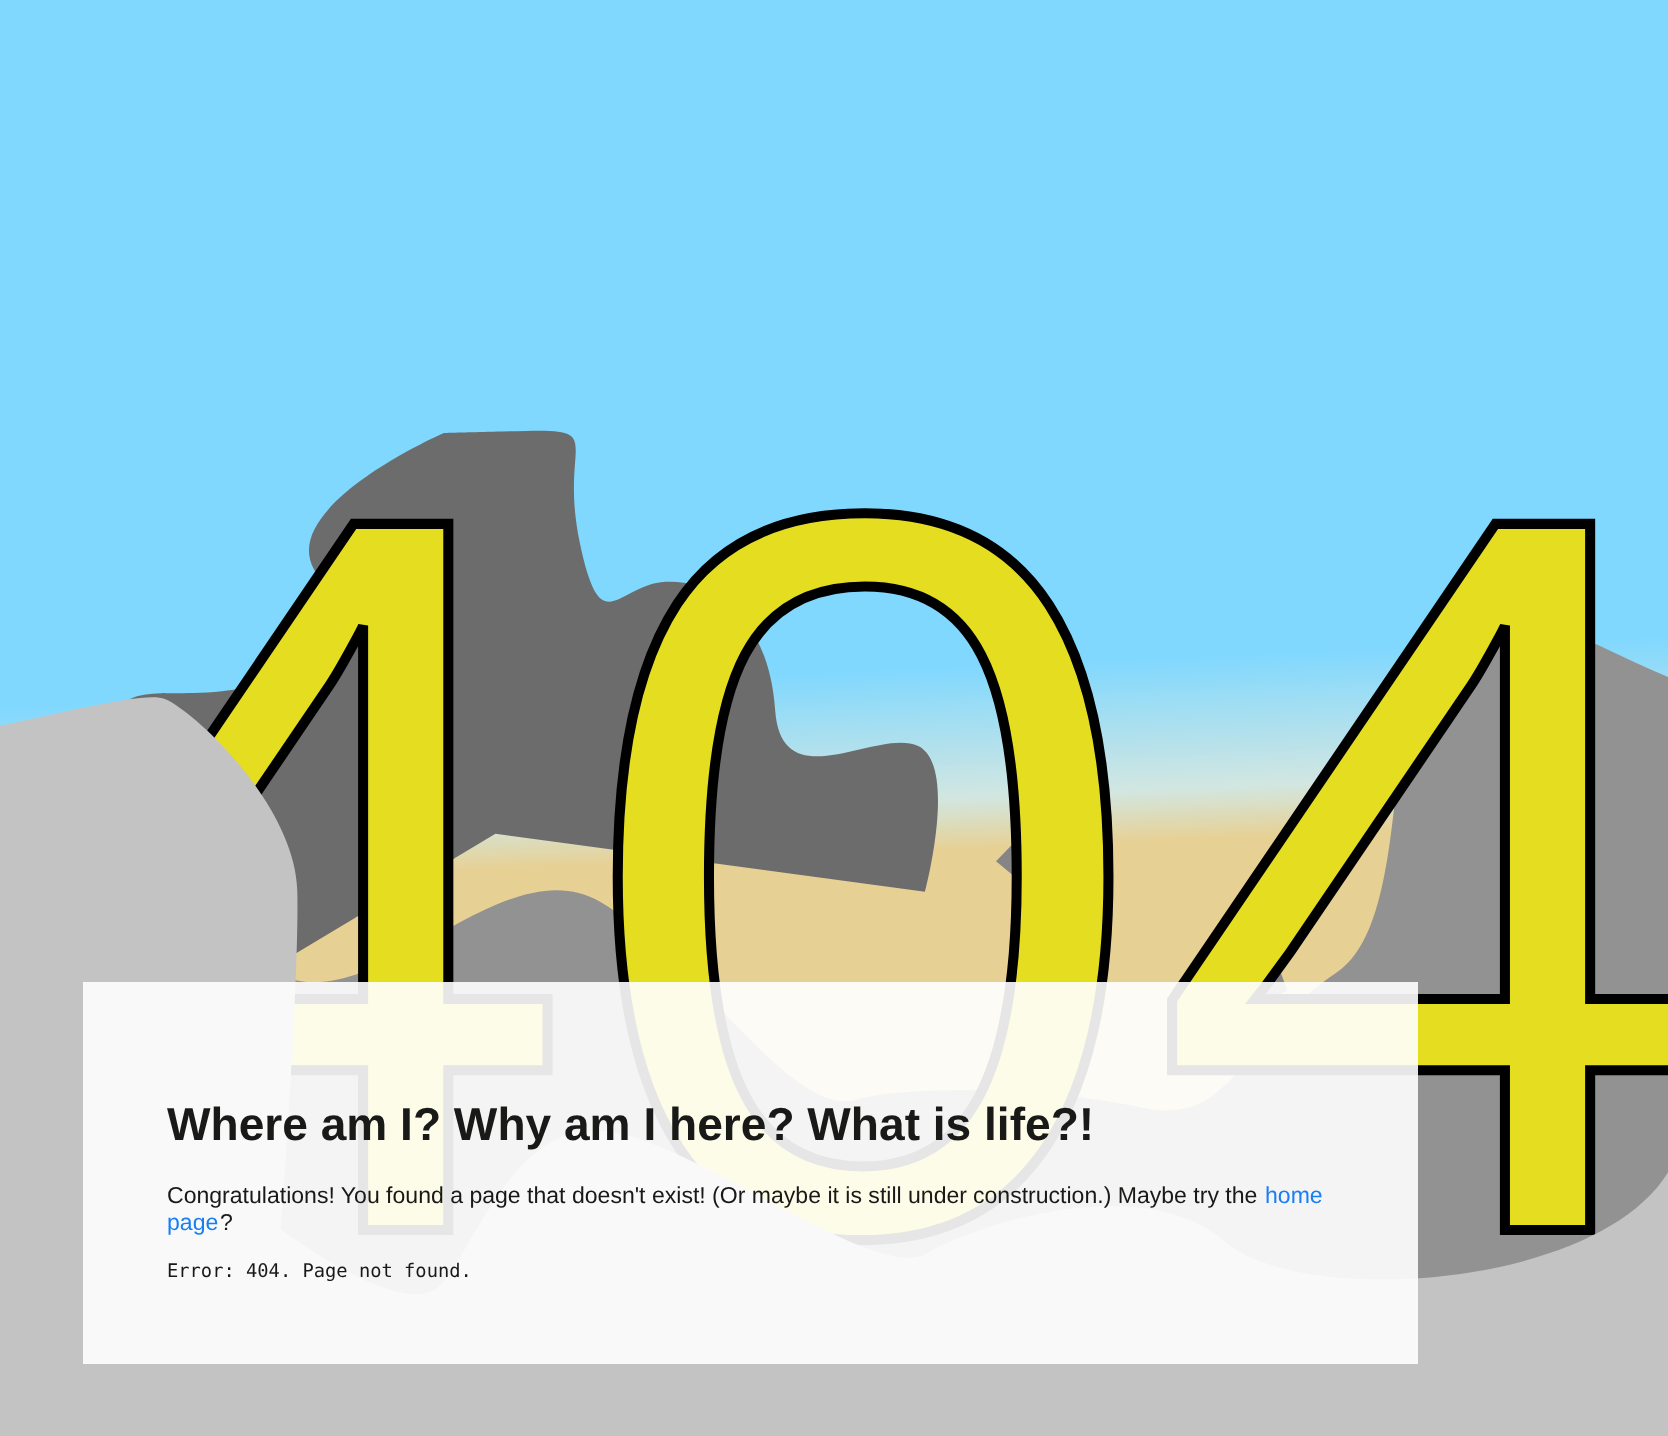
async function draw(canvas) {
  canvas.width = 1668;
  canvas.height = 1436;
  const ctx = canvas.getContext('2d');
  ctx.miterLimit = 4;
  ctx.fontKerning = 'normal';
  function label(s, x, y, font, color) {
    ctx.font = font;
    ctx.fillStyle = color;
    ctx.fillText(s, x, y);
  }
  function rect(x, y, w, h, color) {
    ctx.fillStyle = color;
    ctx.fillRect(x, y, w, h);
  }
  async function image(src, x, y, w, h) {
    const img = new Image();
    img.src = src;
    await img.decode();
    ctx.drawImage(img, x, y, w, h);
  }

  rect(0, 0, 1668, 1436, '#fff');
  await image('assets/img1.png', 0, 0, 1668, 1436);
  rect(83, 982, 1335, 382, '#ffffffe6');
  label('Where am I? Why am I here? What is life?!', 167, 1140, 'bold 46.1px Liberation Sans', '#191918');
  label('Congratulations! You found a page that doesn\'t exist! (Or maybe it is still under', 167, 1203, '23.05px Liberation Sans', '#191918');
  label('construction.) Maybe try the', 973, 1203, '23.05px Liberation Sans', '#191918');
  label('home', 1265, 1203, '23.05px Liberation Sans', '#187ef4');
  label('page', 167, 1230, '23.05px Liberation Sans', '#187ef4');
  label('?', 220, 1230, '23.05px Liberation Sans', '#191918');
  label('Error: 404. Page not found.', 167, 1277, '18.75px DejaVu Sans Mono', '#191918');
}

draw(document.querySelector('canvas'));
